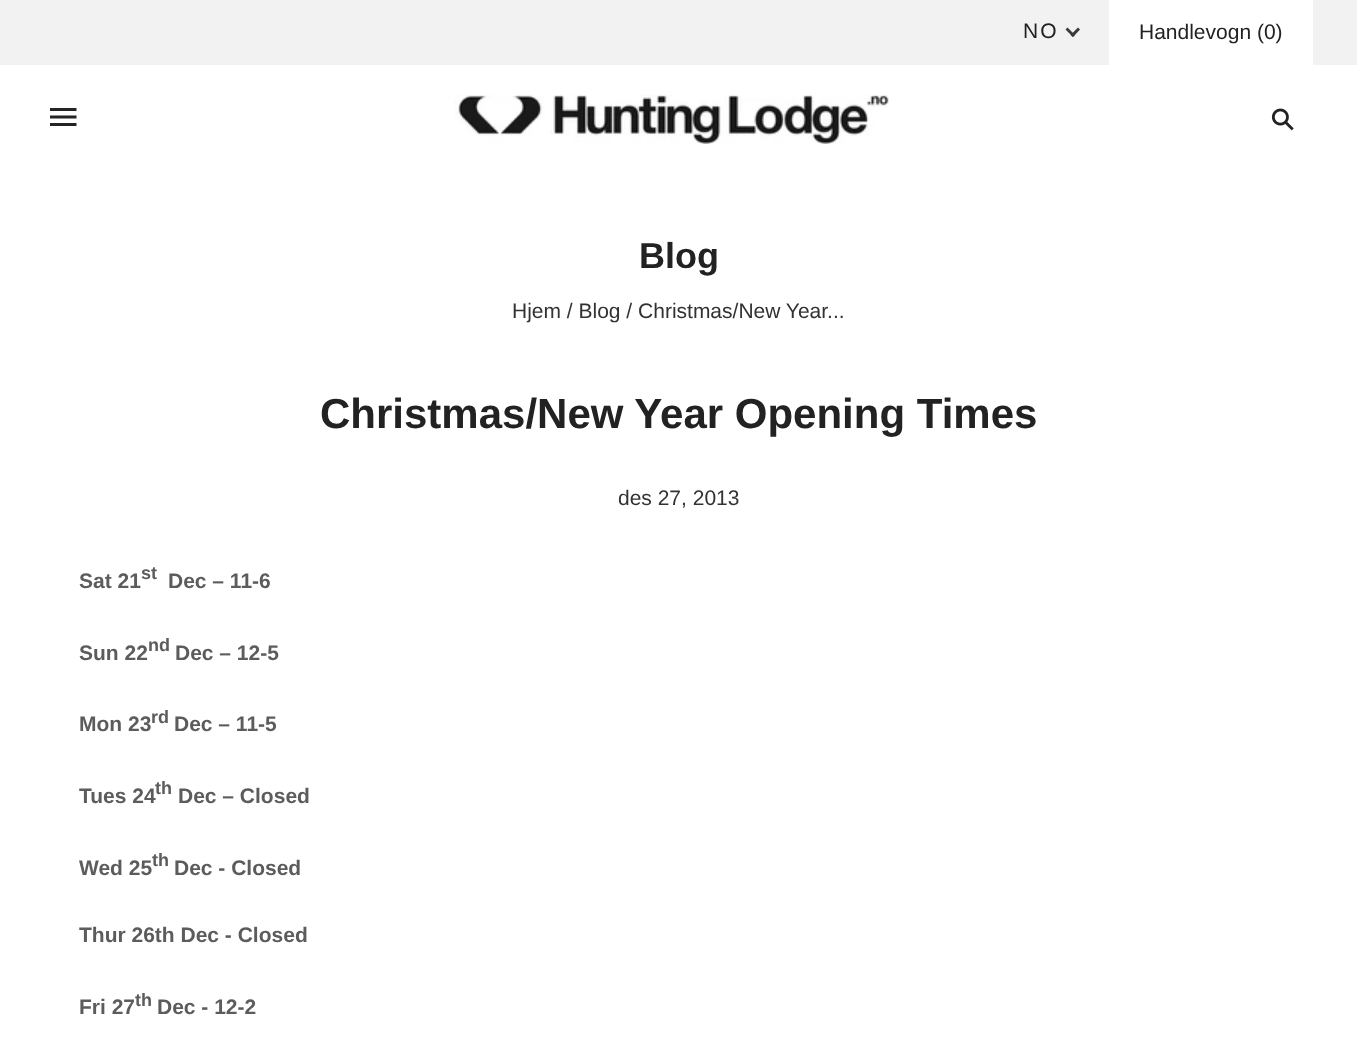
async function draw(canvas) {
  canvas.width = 1357;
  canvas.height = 1044;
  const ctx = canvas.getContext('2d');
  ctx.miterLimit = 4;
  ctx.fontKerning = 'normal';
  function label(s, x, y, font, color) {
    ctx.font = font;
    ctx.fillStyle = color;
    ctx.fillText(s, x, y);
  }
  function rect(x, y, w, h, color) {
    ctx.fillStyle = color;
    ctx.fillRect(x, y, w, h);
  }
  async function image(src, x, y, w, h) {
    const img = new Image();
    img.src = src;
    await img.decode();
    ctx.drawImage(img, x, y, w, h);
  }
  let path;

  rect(0, 0, 1357, 1044, '#fff');
  rect(0, 0, 1357, 65, '#f2f2f2');
  ctx.letterSpacing = '2px';
  label('NO', 1023, 38, '21px Liberation Sans', '#222');
  ctx.fillStyle = '#3a3a3a';
  path = new Path2D('M1078 27.5L1080 29.5L1073 37L1070.5 35Z');
  ctx.fill(path);
  path = new Path2D('M1067.5 27.5L1075 35L1073 37L1065.5 29.5Z');
  ctx.fill(path);
  rect(1109, 0, 204, 65, '#fff');
  ctx.letterSpacing = '0px';
  label('Handlevogn (0)', 1139, 39, '21px Liberation Sans', '#222');
  await image('assets/img1.png', 50, 108, 27, 18);
  await image('assets/img2.png', 454, 94, 435, 50);
  await image('assets/img3.png', 1271, 108, 23, 23);
  label('Blog', 639, 268, 'bold 36px Liberation Sans', '#222');
  label('Hjem / Blog / Christmas/New Year...', 512, 318, '21px Liberation Sans', '#323232');
  label('Christmas/New Year Opening Times', 320, 428, 'bold 42px Liberation Sans', '#222');
  label('des 27, 2013', 618, 505, '21px Liberation Sans', '#323232');
  label('Sat 21', 79, 588, 'bold 21px Liberation Sans', '#5c5c5c');
  label('st', 141, 579, 'bold 18px Liberation Sans', '#5c5c5c');
  label('Dec – 11-6', 168, 588, 'bold 21px Liberation Sans', '#5c5c5c');
  label('Sun 22', 79, 660, 'bold 21px Liberation Sans', '#5c5c5c');
  label('nd', 148, 651, 'bold 18px Liberation Sans', '#5c5c5c');
  label('Dec – 12-5', 175, 660, 'bold 21px Liberation Sans', '#5c5c5c');
  label('Mon 23', 79, 731, 'bold 21px Liberation Sans', '#5c5c5c');
  label('rd', 151, 723, 'bold 18px Liberation Sans', '#5c5c5c');
  label('Dec – 11-5', 174, 731, 'bold 21px Liberation Sans', '#5c5c5c');
  label('Tues 24', 79, 803, 'bold 21px Liberation Sans', '#5c5c5c');
  label('th', 155, 794, 'bold 18px Liberation Sans', '#5c5c5c');
  label('Dec – Closed', 178, 803, 'bold 21px Liberation Sans', '#5c5c5c');
  label('Wed 25', 79, 875, 'bold 21px Liberation Sans', '#5c5c5c');
  label('th', 152, 866, 'bold 18px Liberation Sans', '#5c5c5c');
  label('Dec - Closed', 174, 875, 'bold 21px Liberation Sans', '#5c5c5c');
  label('Thur 26th Dec - Closed', 79, 942, 'bold 21px Liberation Sans', '#5c5c5c');
  label('Fri 27', 79, 1014, 'bold 21px Liberation Sans', '#5c5c5c');
  label('th', 135, 1006, 'bold 18px Liberation Sans', '#5c5c5c');
  label('Dec - 12-2', 157, 1014, 'bold 21px Liberation Sans', '#5c5c5c');
}

draw(document.querySelector('canvas'));
